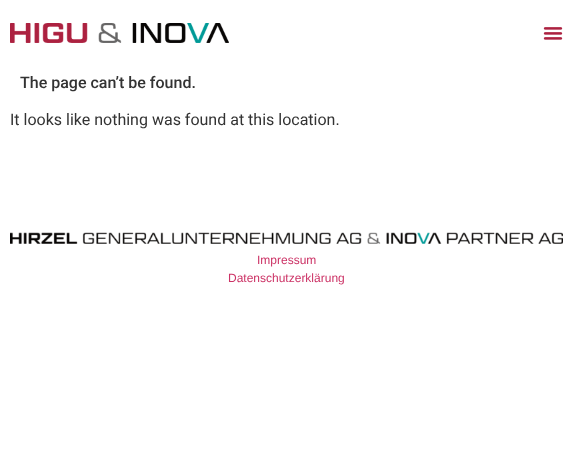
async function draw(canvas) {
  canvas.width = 573;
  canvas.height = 464;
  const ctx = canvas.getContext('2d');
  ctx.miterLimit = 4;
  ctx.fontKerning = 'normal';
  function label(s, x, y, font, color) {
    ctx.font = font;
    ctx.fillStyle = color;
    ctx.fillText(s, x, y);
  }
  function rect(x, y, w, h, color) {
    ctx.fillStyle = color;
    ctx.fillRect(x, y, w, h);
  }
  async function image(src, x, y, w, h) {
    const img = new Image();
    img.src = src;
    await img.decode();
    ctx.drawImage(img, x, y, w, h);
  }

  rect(0, 0, 573, 464, '#fff');
  await image('assets/img1.png', 10, 23, 219, 20);
  await image('assets/img2.png', 543, 27, 20, 13);
  label('The page can’t be found.', 20, 88, '500 16px Roboto', '#333');
  label('It looks like nothing was found at this location.', 10, 125, '16px Roboto', '#333');
  await image('assets/img3.png', 10, 232, 553, 12);
  label('Impressum', 257, 264, '12px Liberation Sans', '#c36');
  label('Datenschutzerklärung', 228, 282, '12px Liberation Sans', '#c36');
}

draw(document.querySelector('canvas'));
